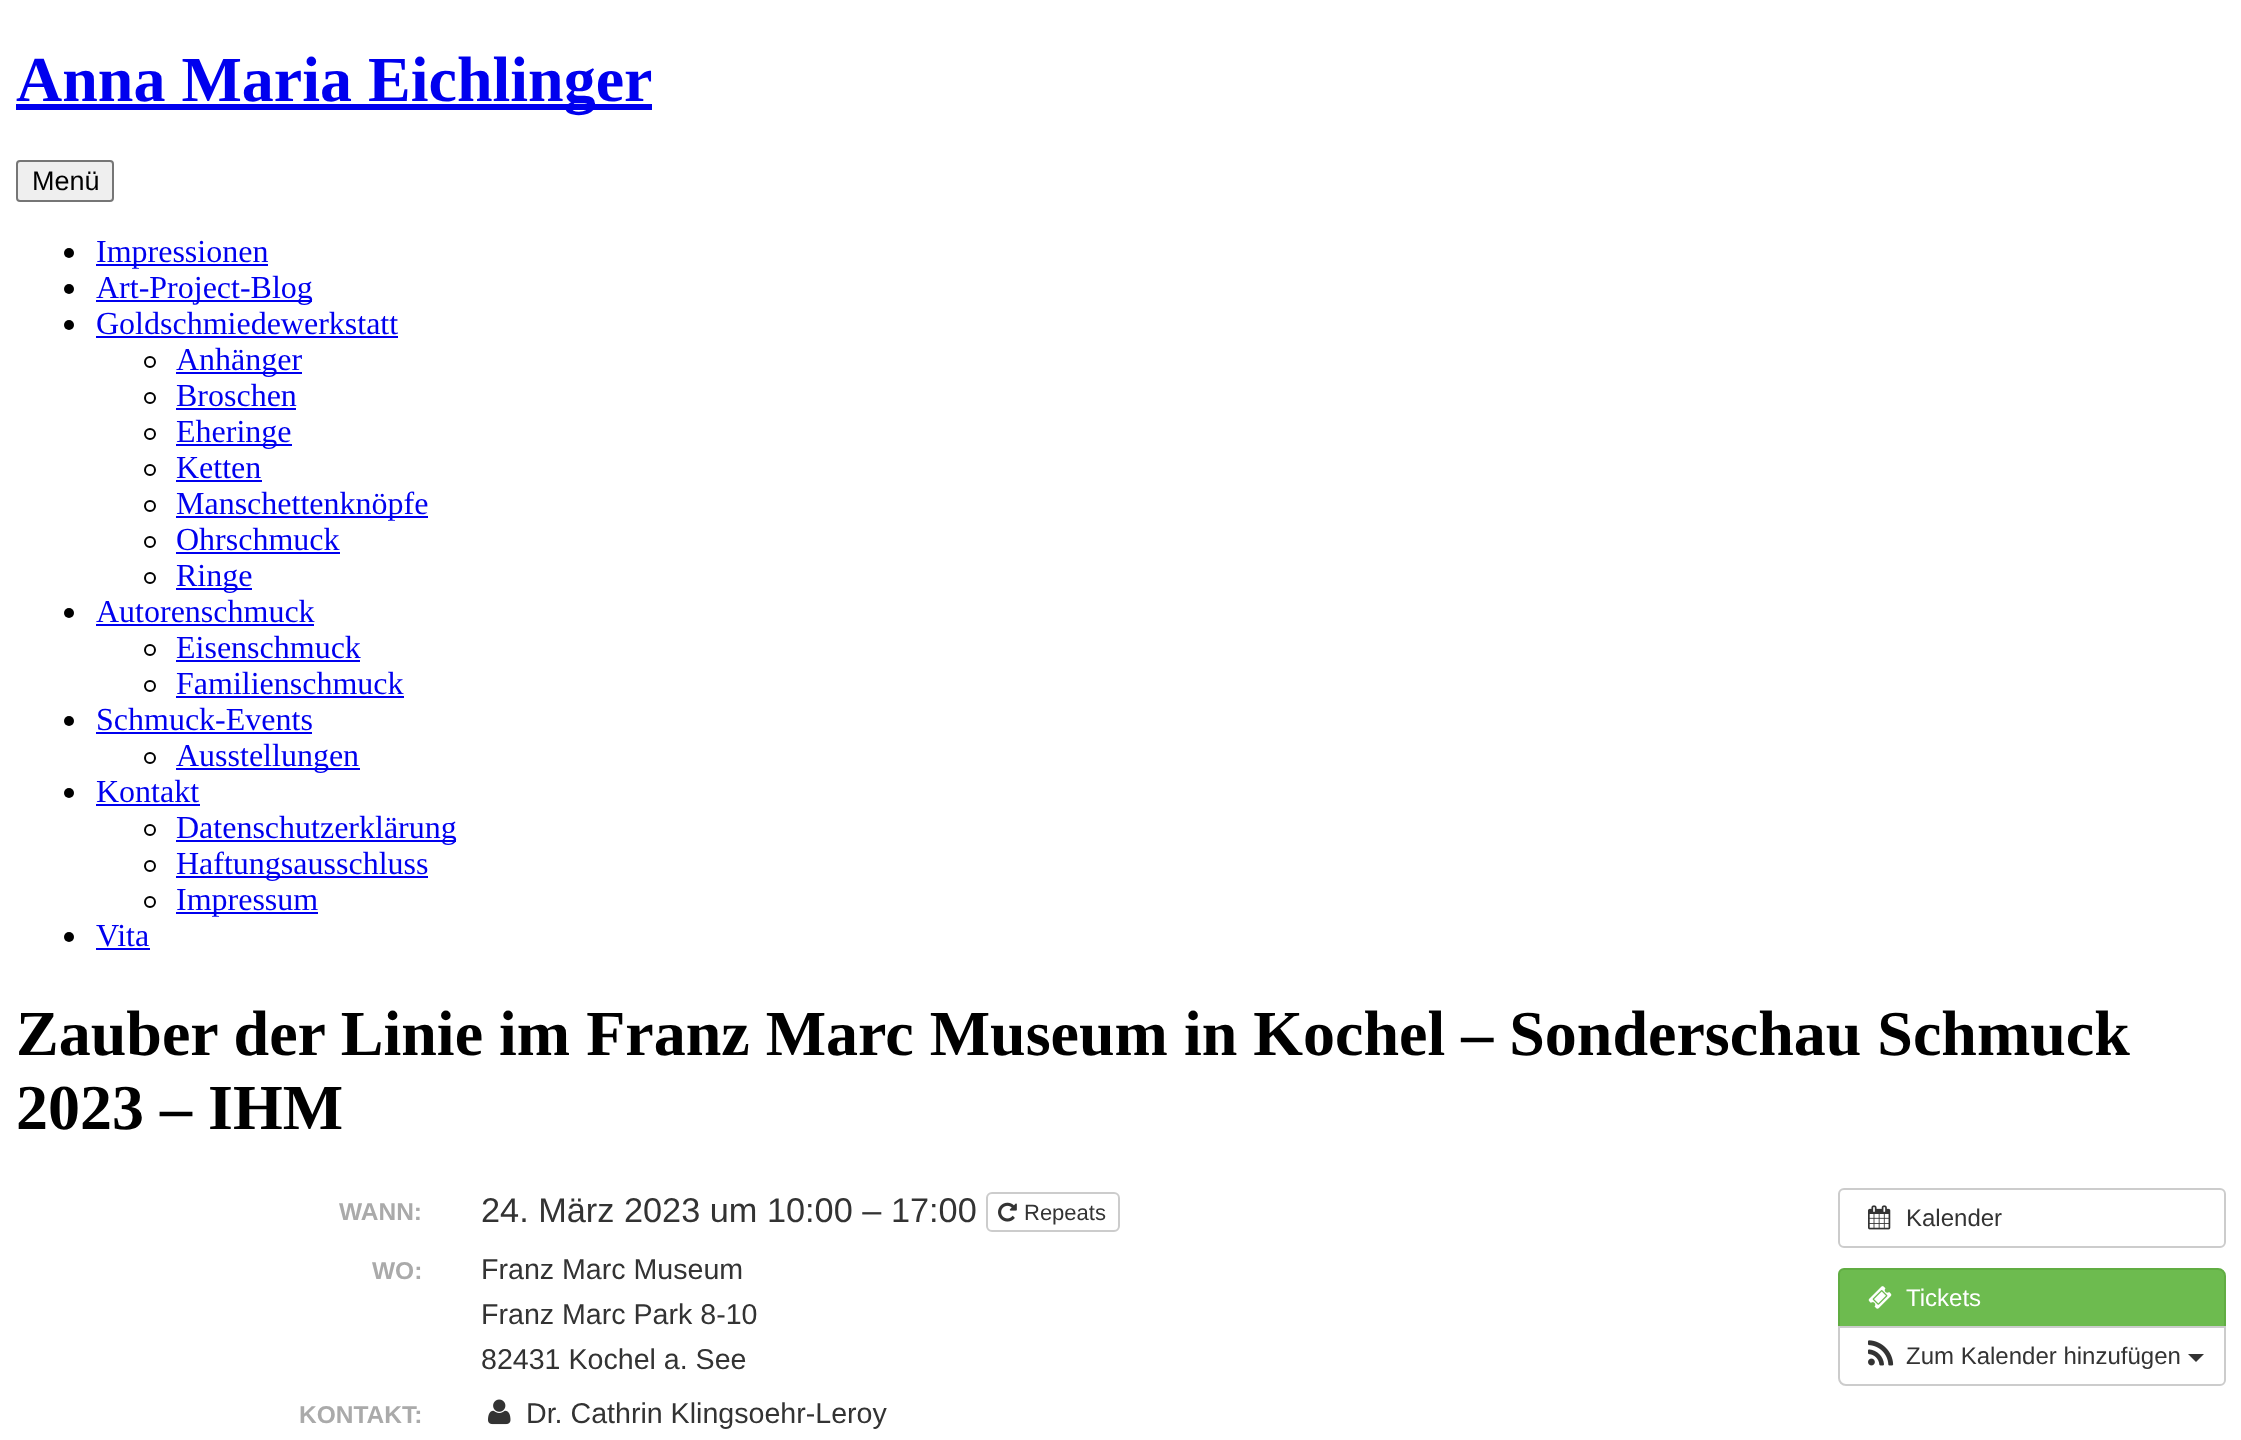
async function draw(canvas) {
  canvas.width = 2241;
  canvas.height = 1440;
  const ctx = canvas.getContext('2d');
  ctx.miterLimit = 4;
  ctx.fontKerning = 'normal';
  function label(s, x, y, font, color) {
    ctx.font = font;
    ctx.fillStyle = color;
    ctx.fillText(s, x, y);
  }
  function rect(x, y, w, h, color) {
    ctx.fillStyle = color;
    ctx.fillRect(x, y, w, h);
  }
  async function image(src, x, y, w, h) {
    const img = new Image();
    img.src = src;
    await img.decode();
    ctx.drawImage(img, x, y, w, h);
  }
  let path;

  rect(0, 0, 2241, 1440, '#fff');
  rect(16, 104, 636, 6, '#00e');
  label('Anna Maria Eichlinger', 16, 101, 'bold 64px Liberation Serif', '#00e');
  ctx.fillStyle = '#efefef';
  ctx.beginPath();
  ctx.roundRect(17, 161, 96, 40, 3);
  ctx.fill();
  ctx.strokeStyle = '#767676';
  ctx.lineWidth = 2;
  ctx.stroke();
  label('Menü', 32, 190, '27px Liberation Sans', '#000');
  ctx.beginPath();
  ctx.arc(69, 253, 5, 0, 2 * Math.PI);
  ctx.fill();
  rect(96, 264, 172, 2, '#00e');
  label('Impressionen', 96, 262, '32px Liberation Serif', '#00e');
  ctx.fillStyle = '#000';
  ctx.beginPath();
  ctx.arc(69, 289, 5, 0, 2 * Math.PI);
  ctx.fill();
  rect(96, 300, 216, 2, '#00e');
  label('Art-Project-Blog', 96, 298, '32px Liberation Serif', '#00e');
  ctx.fillStyle = '#000';
  ctx.beginPath();
  ctx.arc(69, 325, 5, 0, 2 * Math.PI);
  ctx.fill();
  label('Goldschmiedewerkstatt', 96, 334, '32px Liberation Serif', '#00e');
  rect(96, 336, 302, 2, '#00e');
  ctx.beginPath();
  ctx.arc(150, 362, 5, 0, 2 * Math.PI);
  ctx.strokeStyle = '#000';
  ctx.stroke();
  rect(176, 372, 126, 2, '#00e');
  label('Anhänger', 176, 370, '32px Liberation Serif', '#00e');
  ctx.beginPath();
  ctx.arc(150, 398, 5, 0, 2 * Math.PI);
  ctx.stroke();
  label('Broschen', 176, 406, '32px Liberation Serif', '#00e');
  rect(176, 408, 120, 2, '#00e');
  ctx.beginPath();
  ctx.arc(150, 434, 5, 0, 2 * Math.PI);
  ctx.stroke();
  rect(176, 444, 116, 2, '#00e');
  label('Eheringe', 176, 442, '32px Liberation Serif', '#00e');
  ctx.beginPath();
  ctx.arc(150, 470, 5, 0, 2 * Math.PI);
  ctx.stroke();
  label('Ketten', 176, 478, '32px Liberation Serif', '#00e');
  rect(176, 480, 86, 2, '#00e');
  ctx.beginPath();
  ctx.arc(150, 506, 5, 0, 2 * Math.PI);
  ctx.stroke();
  rect(176, 516, 252, 2, '#00e');
  label('Manschettenknöpfe', 176, 514, '32px Liberation Serif', '#00e');
  ctx.beginPath();
  ctx.arc(150, 542, 5, 0, 2 * Math.PI);
  ctx.stroke();
  label('Ohrschmuck', 176, 550, '32px Liberation Serif', '#00e');
  rect(176, 552, 164, 2, '#00e');
  ctx.beginPath();
  ctx.arc(150, 578, 5, 0, 2 * Math.PI);
  ctx.stroke();
  rect(176, 588, 76, 2, '#00e');
  label('Ringe', 176, 586, '32px Liberation Serif', '#00e');
  ctx.fillStyle = '#000';
  ctx.beginPath();
  ctx.arc(69, 613, 5, 0, 2 * Math.PI);
  ctx.fill();
  label('Autorenschmuck', 96, 622, '32px Liberation Serif', '#00e');
  rect(96, 624, 218, 2, '#00e');
  ctx.beginPath();
  ctx.arc(150, 650, 5, 0, 2 * Math.PI);
  ctx.stroke();
  label('Eisenschmuck', 176, 658, '32px Liberation Serif', '#00e');
  rect(176, 660, 184, 2, '#00e');
  ctx.beginPath();
  ctx.arc(150, 686, 5, 0, 2 * Math.PI);
  ctx.stroke();
  label('Familienschmuck', 176, 694, '32px Liberation Serif', '#00e');
  rect(176, 696, 228, 2, '#00e');
  ctx.fillStyle = '#000';
  ctx.beginPath();
  ctx.arc(69, 721, 5, 0, 2 * Math.PI);
  ctx.fill();
  label('Schmuck-Events', 96, 730, '32px Liberation Serif', '#00e');
  rect(96, 732, 216, 2, '#00e');
  ctx.beginPath();
  ctx.arc(150, 758, 5, 0, 2 * Math.PI);
  ctx.stroke();
  rect(176, 768, 184, 2, '#00e');
  label('Ausstellungen', 176, 766, '32px Liberation Serif', '#00e');
  ctx.fillStyle = '#000';
  ctx.beginPath();
  ctx.arc(69, 793, 5, 0, 2 * Math.PI);
  ctx.fill();
  label('Kontakt', 96, 802, '32px Liberation Serif', '#00e');
  rect(96, 804, 104, 2, '#00e');
  ctx.beginPath();
  ctx.arc(150, 830, 5, 0, 2 * Math.PI);
  ctx.stroke();
  rect(176, 840, 280, 2, '#00e');
  label('Datenschutzerklärung', 176, 838, '32px Liberation Serif', '#00e');
  ctx.beginPath();
  ctx.arc(150, 866, 5, 0, 2 * Math.PI);
  ctx.stroke();
  rect(176, 876, 252, 2, '#00e');
  label('Haftungsausschluss', 176, 874, '32px Liberation Serif', '#00e');
  ctx.beginPath();
  ctx.arc(150, 902, 5, 0, 2 * Math.PI);
  ctx.stroke();
  rect(176, 912, 142, 2, '#00e');
  label('Impressum', 176, 910, '32px Liberation Serif', '#00e');
  ctx.fillStyle = '#000';
  ctx.beginPath();
  ctx.arc(69, 937, 5, 0, 2 * Math.PI);
  ctx.fill();
  label('Vita', 96, 946, '32px Liberation Serif', '#00e');
  rect(96, 948, 54, 2, '#00e');
  label('Zauber der Linie im Franz Marc Museum in Kochel – Sonderschau Schmuck', 16, 1055, 'bold 64px Liberation Serif', '#000');
  label('2023 – IHM', 16, 1129, 'bold 64px Liberation Serif', '#000');
  label('WANN:', 339, 1220, 'bold 24.5px Liberation Sans', '#aaa');
  label('24. März 2023 um 10:00 – 17:00', 481, 1222, '34.3px Liberation Sans', '#333');
  ctx.beginPath();
  ctx.roundRect(987, 1193, 132, 38, 5);
  ctx.strokeStyle = '#ccc';
  ctx.stroke();
  await image('assets/img1.png', 998, 1202, 19, 20);
  label('Repeats', 1024, 1220, '22px Liberation Sans', '#333');
  label('WO:', 372, 1279, 'bold 24.5px Liberation Sans', '#aaa');
  label('Franz Marc Museum', 481, 1279, '28.6px Liberation Sans', '#333');
  label('Franz Marc Park 8-10', 481, 1324, '28.6px Liberation Sans', '#333');
  label('82431 Kochel a. See', 481, 1369, '28.6px Liberation Sans', '#333');
  label('KONTAKT:', 299, 1423, 'bold 24.5px Liberation Sans', '#aaa');
  await image('assets/img2.png', 488, 1399, 23, 26);
  label('Dr. Cathrin Klingsoehr-Leroy', 526, 1423, '28.6px Liberation Sans', '#333');
  ctx.beginPath();
  ctx.roundRect(1839, 1189, 386, 58, 5);
  ctx.stroke();
  await image('assets/img3.png', 1868, 1205, 23, 25);
  label('Kalender', 1906, 1226, '24px Liberation Sans', '#333');
  ctx.fillStyle = '#6dbb4f';
  ctx.beginPath();
  ctx.roundRect(1839, 1269, 386, 58, [5, 7, 0, 0]);
  ctx.fill();
  ctx.strokeStyle = '#61ad43';
  ctx.stroke();
  await image('assets/img4.png', 1868, 1286, 24, 23);
  label('Tickets', 1906, 1306, '24px Liberation Sans', '#fff');
  ctx.beginPath();
  ctx.roundRect(1839, 1327, 386, 58, [0, 0, 5, 7]);
  ctx.fill();
  ctx.strokeStyle = '#ccc';
  ctx.stroke();
  await image('assets/img5.png', 1868, 1340, 26, 26);
  label('Zum Kalender hinzufügen', 1906, 1364, '24px Liberation Sans', '#333');
  path = new Path2D('M2188 1354H2204L2196 1362Z');
  ctx.fill(path);
}

draw(document.querySelector('canvas'));
